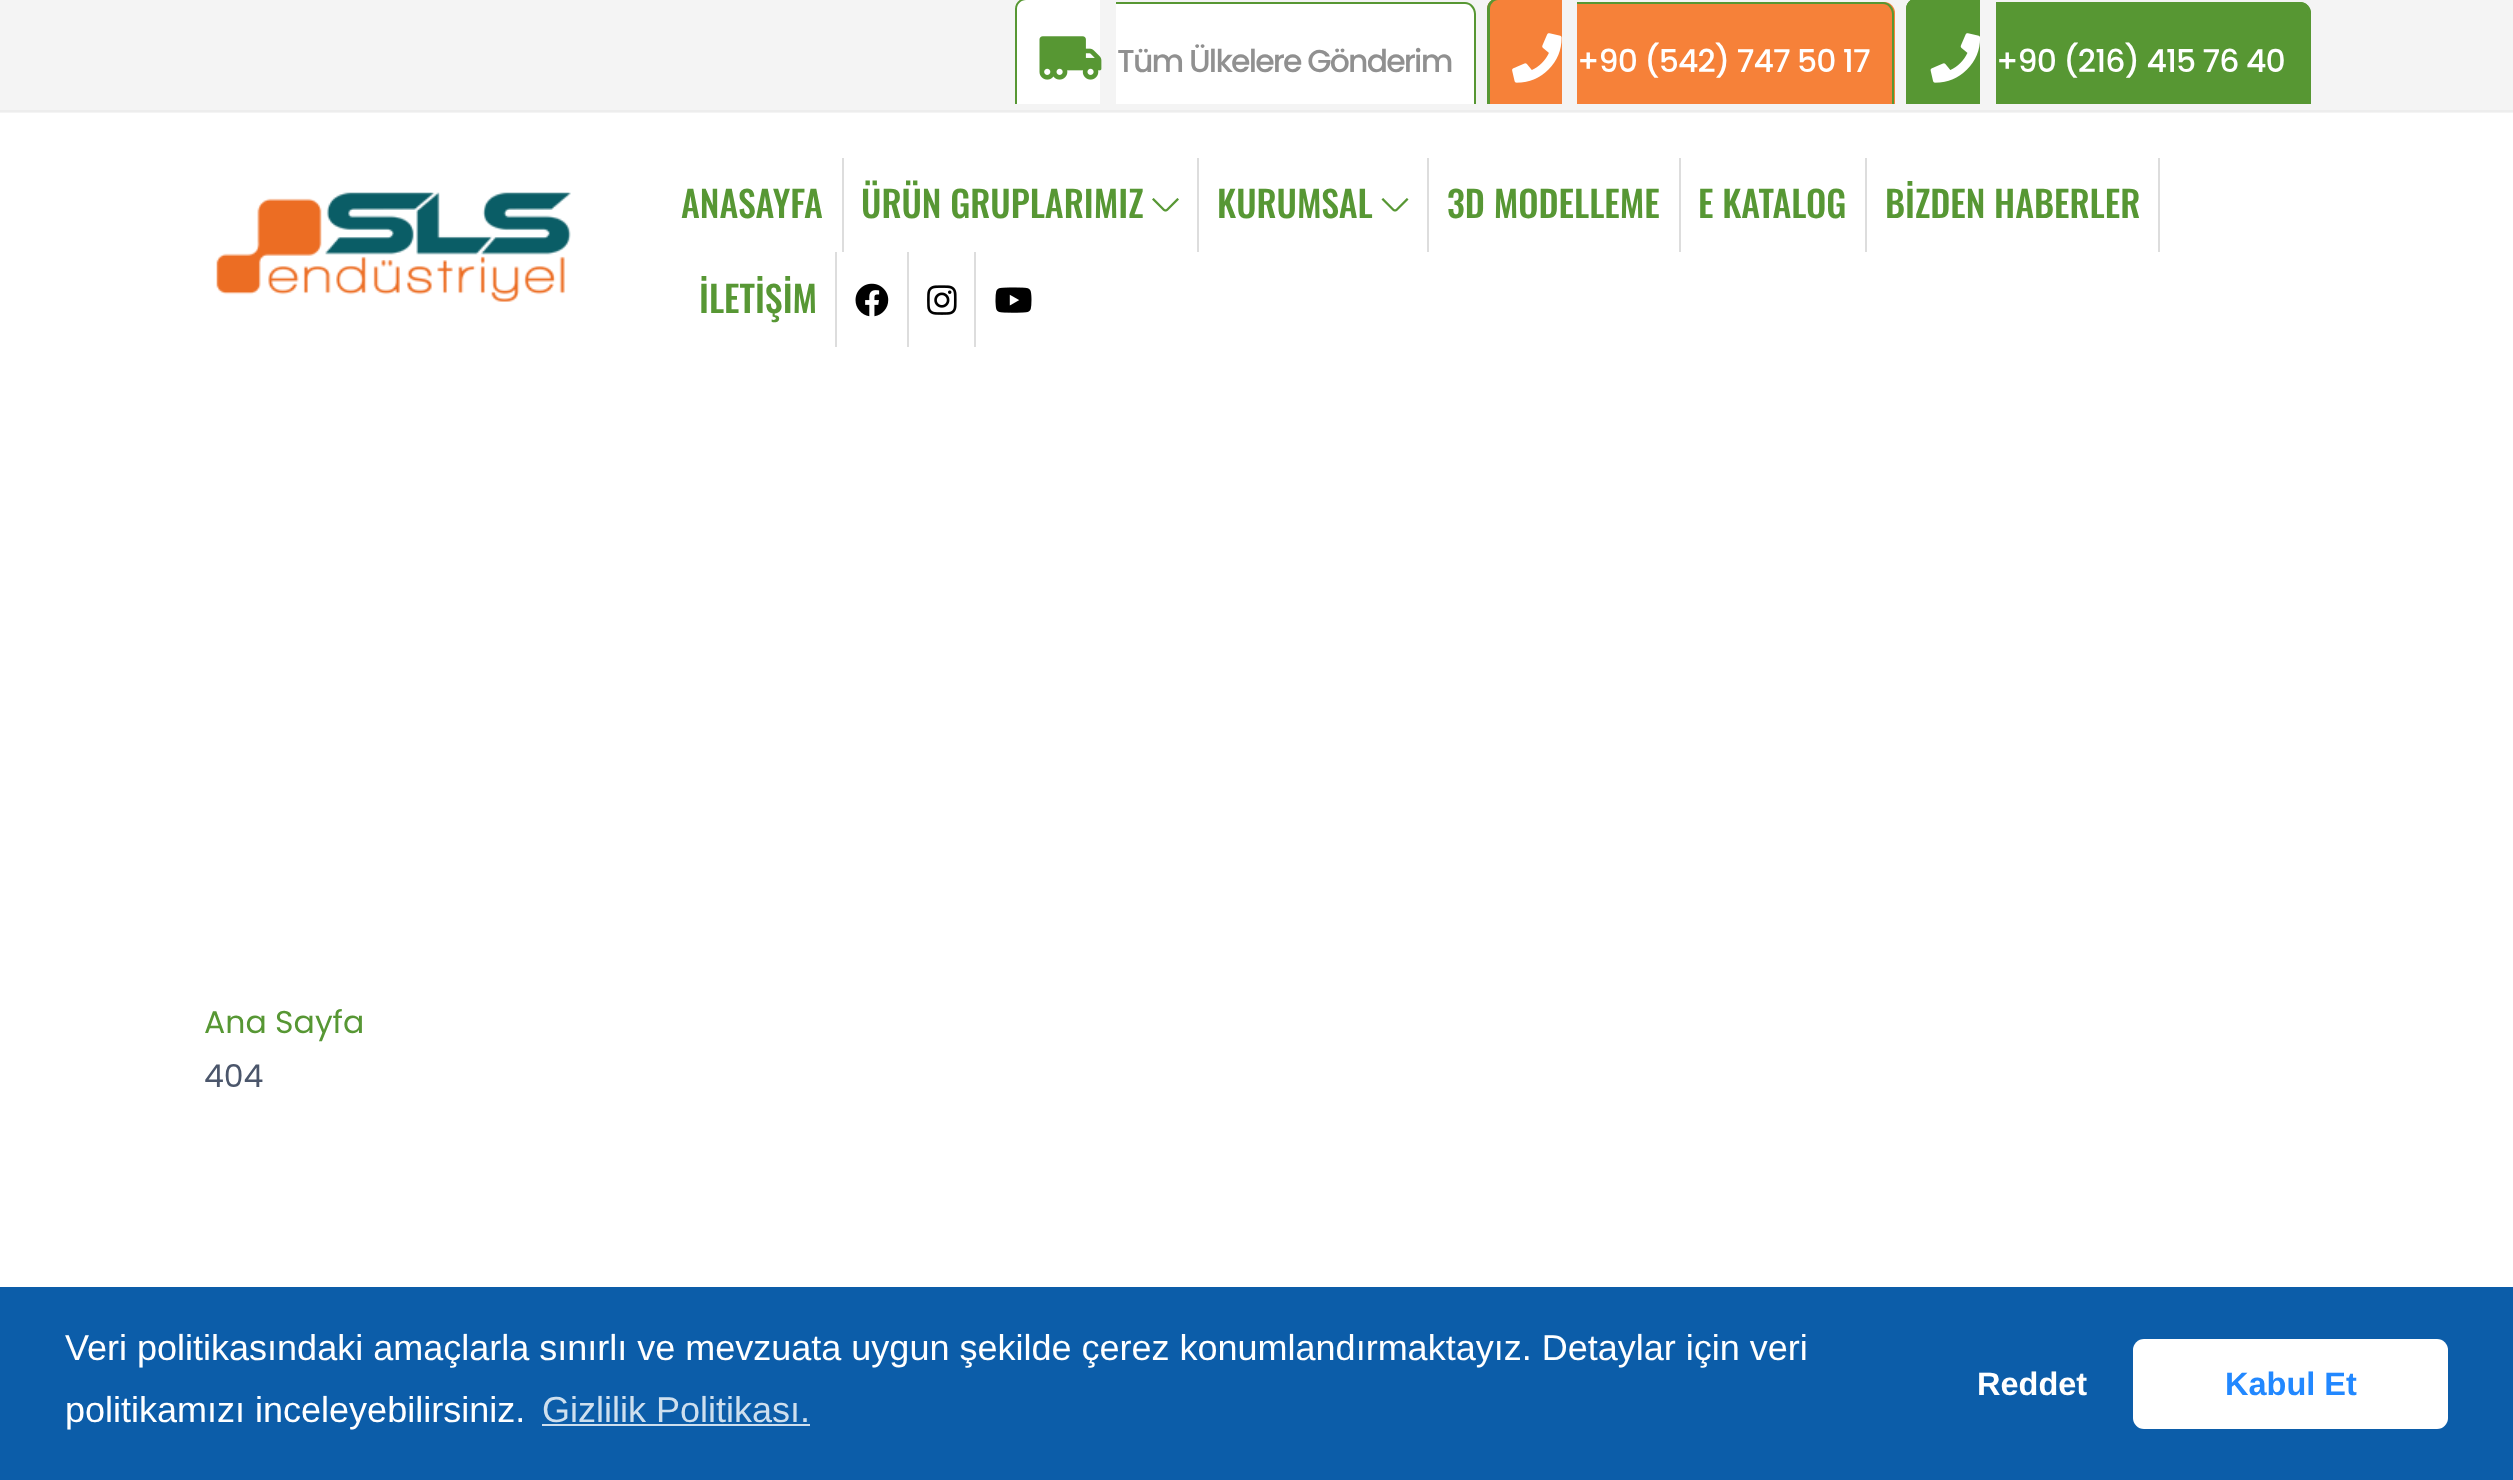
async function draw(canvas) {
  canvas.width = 2513;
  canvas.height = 1480;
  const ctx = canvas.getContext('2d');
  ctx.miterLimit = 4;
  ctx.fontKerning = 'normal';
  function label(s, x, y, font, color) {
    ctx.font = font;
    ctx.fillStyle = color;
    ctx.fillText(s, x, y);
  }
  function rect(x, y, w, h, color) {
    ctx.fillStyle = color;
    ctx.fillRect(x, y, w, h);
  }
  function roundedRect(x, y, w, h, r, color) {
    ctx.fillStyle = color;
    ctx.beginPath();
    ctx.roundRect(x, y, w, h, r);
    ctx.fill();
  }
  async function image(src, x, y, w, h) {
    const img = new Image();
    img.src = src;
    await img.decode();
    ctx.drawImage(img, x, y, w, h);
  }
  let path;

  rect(0, 0, 2513, 1480, '#fff');
  rect(0, 0, 2513, 113, '#f4f4f4');
  rect(0, 110, 2513, 2, '#ededed');
  ctx.fillStyle = '#fff';
  path = new Path2D('M1026-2H1100V104H1015V9C1015 3 1020-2 1026-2Z');
  ctx.fill(path);
  ctx.fillStyle = '#579733';
  path = new Path2D('M1026-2H1100V104H1015V9C1015 3 1020-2 1026-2ZM1026 0H1100V104H1017V9C1017 4 1021 0 1026 0Z');
  ctx.fill(path, 'evenodd');
  ctx.fillStyle = '#fff';
  ctx.beginPath();
  ctx.roundRect(1116, 2, 360, 102, [0, 11, 0, 0]);
  ctx.fill();
  ctx.fillStyle = '#579733';
  path = new Path2D('M1116 2H1465C1471 2 1476 7 1476 14V104H1116ZM1116 4H1465C1470 4 1474 9 1474 14V104H1116Z');
  ctx.fill(path, 'evenodd');
  await image('assets/img1.png', 1039, 36, 63, 44);
  ctx.letterSpacing = '-1.8px';
  label('Tüm Ülkelere Gönderim', 1117, 72, '500 31.5px Poppins', '#909090');
  ctx.fillStyle = '#f68139';
  path = new Path2D('M1498-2H1562V104H1487V9C1487 3 1492-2 1498-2Z');
  ctx.fill(path);
  ctx.fillStyle = '#579733';
  path = new Path2D('M1498-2H1562V104H1487V9C1487 3 1492-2 1498-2ZM1498 0H1562V104H1490V9C1490 4 1494 0 1498 0Z');
  ctx.fill(path, 'evenodd');
  ctx.fillStyle = '#f68139';
  ctx.beginPath();
  ctx.roundRect(1577, 2, 318, 102, [0, 11, 0, 0]);
  ctx.fill();
  ctx.fillStyle = '#579733';
  path = new Path2D('M1577 2H1883C1889 2 1894 7 1894 14V104H1577ZM1577 4H1883C1888 4 1892 9 1892 14V104H1577Z');
  ctx.fill(path, 'evenodd');
  await image('assets/img2.png', 1512, 33, 50, 50);
  ctx.letterSpacing = '-0.9px';
  label('+90 (542) 747 50 17', 1577, 72, '500 31.5px Poppins', '#fff');
  ctx.fillStyle = '#579733';
  path = new Path2D('M1917-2H1980V104H1906V9C1906 3 1911-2 1917-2Z');
  ctx.fill(path);
  path = new Path2D('M1917-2H1980V104H1906V9C1906 3 1911-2 1917-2ZM1917 0H1980V104H1908V9C1908 4 1912 0 1917 0Z');
  ctx.fill(path, 'evenodd');
  ctx.beginPath();
  ctx.roundRect(1996, 2, 315, 102, [0, 11, 0, 0]);
  ctx.fill();
  path = new Path2D('M1996 2H2300C2306 2 2311 7 2311 14V104H1996ZM1996 4H2300C2304 4 2308 9 2308 14V104H1996Z');
  ctx.fill(path, 'evenodd');
  await image('assets/img3.png', 1930, 33, 50, 50);
  label('+90 (216) 415 76 40', 1996, 72, '500 31.5px Poppins', '#fff');
  await image('assets/img4.png', 216, 192, 355, 110);
  rect(842, 158, 2, 94, '#ddd');
  ctx.letterSpacing = '0px';
  label('ANASAYFA', 681, 218, '500 36px Oswald', '#579734');
  rect(1197, 158, 2, 94, '#ddd');
  label('ÜRÜN GRUPLARIMIZ', 861, 218, '500 36px Oswald', '#579734');
  await image('assets/img5.png', 1152, 198, 27, 14);
  rect(1427, 158, 2, 94, '#ddd');
  label('KURUMSAL', 1217, 218, '500 36px Oswald', '#579734');
  await image('assets/img6.png', 1381, 198, 28, 14);
  rect(1679, 158, 2, 94, '#ddd');
  label('3D MODELLEME', 1447, 218, '500 36px Oswald', '#579734');
  rect(1865, 158, 2, 94, '#ddd');
  label('E KATALOG', 1698, 218, '500 36px Oswald', '#579734');
  rect(2158, 158, 2, 94, '#ddd');
  label('BİZDEN HABERLER', 1885, 218, '500 36px Oswald', '#579734');
  rect(835, 252, 2, 95, '#ddd');
  label('İLETİŞİM', 699, 313, '500 36px Oswald', '#579734');
  rect(907, 252, 2, 95, '#ddd');
  await image('assets/img7.png', 855, 283, 34, 34);
  rect(974, 252, 2, 95, '#ddd');
  await image('assets/img8.png', 927, 285, 30, 30);
  await image('assets/img9.png', 995, 287, 37, 26);
  label('Ana Sayfa', 204, 1033, '31.5px Poppins', '#579734');
  label('404', 204, 1087, '31.5px Poppins', '#4b566b');
  rect(0, 1287, 2513, 193, '#0c5da9');
  label('Veri politikasındaki amaçlarla sınırlı ve mevzuata uygun şekilde çerez konumlandırmaktayız. Detaylar için veri', 65, 1360, '36px Liberation Sans', '#fff');
  label('politikamızı inceleyebilirsiniz.', 65, 1422, '36px Liberation Sans', '#fff');
  label('Gizlilik Politikası.', 542, 1422, '36px Liberation Sans', '#cedfee');
  rect(542, 1424, 268, 2, '#cedfee');
  label('Reddet', 1977, 1395, 'bold 32.5px Liberation Sans', '#fff');
  roundedRect(2133, 1339, 315, 90, 11, '#fff');
  label('Kabul Et', 2225, 1395, 'bold 32.5px Liberation Sans', '#28f');
}

draw(document.querySelector('canvas'));
